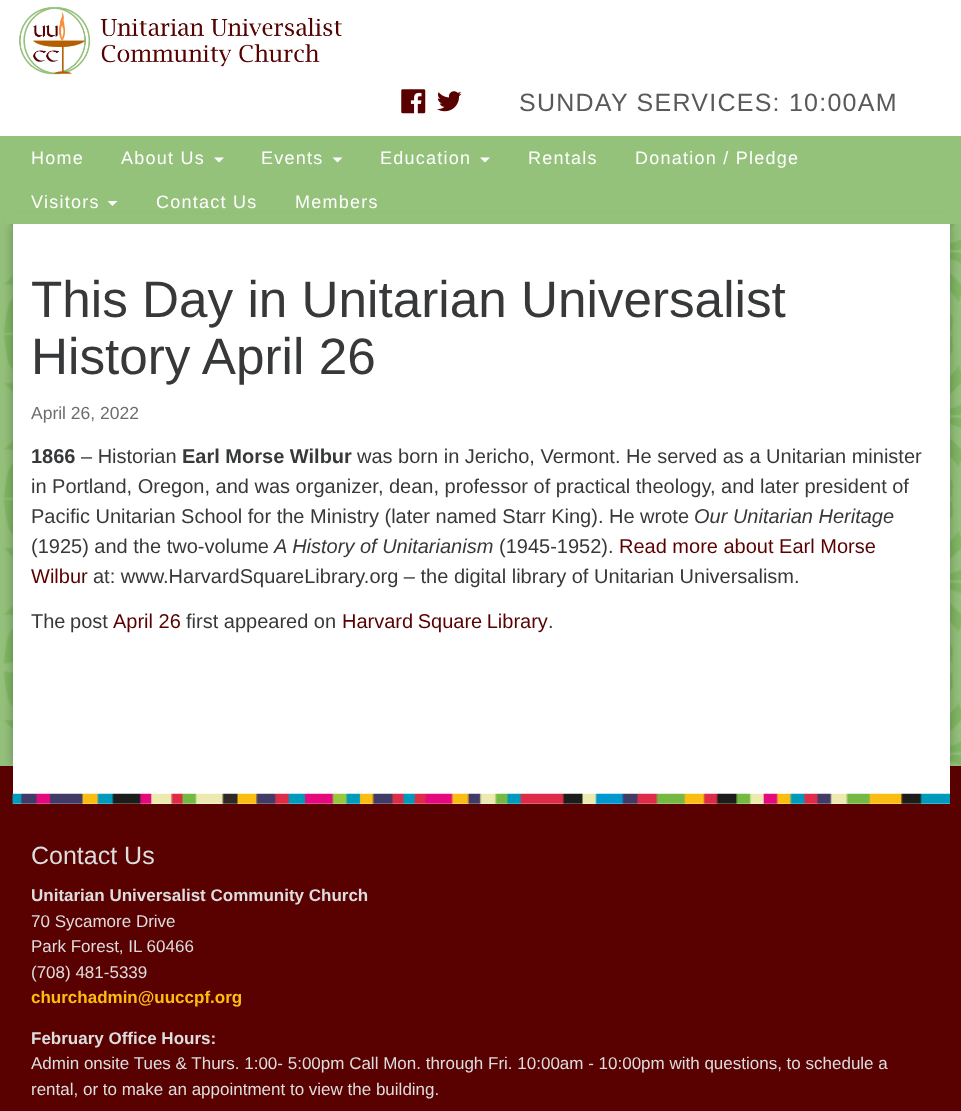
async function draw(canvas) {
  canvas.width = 961;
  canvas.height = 1111;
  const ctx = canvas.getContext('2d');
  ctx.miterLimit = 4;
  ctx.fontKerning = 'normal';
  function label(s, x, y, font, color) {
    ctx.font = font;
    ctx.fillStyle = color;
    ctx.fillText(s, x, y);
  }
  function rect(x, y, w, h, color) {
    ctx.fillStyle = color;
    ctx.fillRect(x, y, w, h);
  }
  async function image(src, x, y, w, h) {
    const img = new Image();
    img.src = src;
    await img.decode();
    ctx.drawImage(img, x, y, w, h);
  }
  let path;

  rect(0, 0, 961, 1111, '#94c27b');
  await image('assets/img1.png', 3, 224, 958, 542);
  rect(0, 0, 961, 136, '#fff');
  await image('assets/img2.png', 19, 7, 323, 68);
  await image('assets/img3.png', 401, 89, 25, 25);
  await image('assets/img4.png', 437, 91, 25, 21);
  ctx.letterSpacing = '1.25px';
  label('SUNDAY SERVICES: 10:00AM', 519, 111, '25px Liberation Sans', '#58595b');
  ctx.fillStyle = '#0000004d';
  ctx.filter = 'blur(6px)';
  ctx.beginPath();
  ctx.rect(13, 224, 937, 542);
  ctx.fill();
  ctx.filter = 'none';
  rect(5, 214, 953, 10, '#94c27b');
  label('Home', 31, 164, '18px Liberation Sans', '#fff');
  label('About Us', 121, 164, '18px Liberation Sans', '#fff');
  path = new Path2D('M214 157.5H224L219 162.5Z');
  ctx.fill(path);
  label('Events', 261, 164, '18px Liberation Sans', '#fff');
  path = new Path2D('M332.5 157.5H342.5L337.5 162.5Z');
  ctx.fill(path);
  label('Education', 380, 164, '18px Liberation Sans', '#fff');
  path = new Path2D('M480 157.5H490L485 162.5Z');
  ctx.fill(path);
  label('Rentals', 528, 164, '18px Liberation Sans', '#fff');
  label('Donation / Pledge', 635, 164, '18px Liberation Sans', '#fff');
  label('Visitors', 31, 208, '18px Liberation Sans', '#fff');
  path = new Path2D('M107.5 201H117.5L112.5 206Z');
  ctx.fill(path);
  label('Contact Us', 156, 208, '18px Liberation Sans', '#fff');
  label('Members', 295, 208, '18px Liberation Sans', '#fff');
  rect(13, 224, 937, 542, '#fff');
  ctx.letterSpacing = '0px';
  label('This Day in Unitarian Universalist', 31, 317, '51.25px Liberation Sans', '#373839');
  label('History April 26', 31, 374, '51.25px Liberation Sans', '#373839');
  label('April 26, 2022', 31, 419, '17.5px Liberation Sans', '#6c6d6f');
  label('1866', 31, 463, 'bold 20px Liberation Sans', '#373839');
  label('– Historian', 81, 463, '20px Liberation Sans', '#373839');
  label('Earl Morse Wilbur', 182, 463, 'bold 20px Liberation Sans', '#373839');
  label('was born in Jericho, Vermont. He served as a Unitarian minister', 357, 463, '20px Liberation Sans', '#373839');
  label('in Portland, Oregon, and was organizer, dean, professor of practical theology, and later president of', 31, 493, '20px Liberation Sans', '#373839');
  label('Pacific Unitarian School for the Ministry (later named Starr King). He wrote', 31, 523, '20px Liberation Sans', '#373839');
  label('Our Unitarian Heritage', 694, 523, 'italic 20px Liberation Sans', '#373839');
  label('(1925) and the two-volume', 31, 553, '20px Liberation Sans', '#373839');
  label('A History of Unitarianism', 274, 553, 'italic 20px Liberation Sans', '#373839');
  label('(1945-1952).', 499, 553, '20px Liberation Sans', '#373839');
  label('Read more about Earl Morse', 619, 553, '20px Liberation Sans', '#590000');
  label('Wilbur', 31, 583, '20px Liberation Sans', '#590000');
  label('at: www.HarvardSquareLibrary.org – the digital library of Unitarian Universalism.', 93, 583, '20px Liberation Sans', '#373839');
  ctx.wordSpacing = '-1px';
  label('The post', 31, 628, '20px Liberation Sans', '#373839');
  ctx.wordSpacing = '0px';
  label('April 26', 113, 628, '20px Liberation Sans', '#590000');
  label('first appeared on', 186, 628, '20px Liberation Sans', '#373839');
  ctx.wordSpacing = '-1px';
  label('Harvard Square Library', 342, 628, '20px Liberation Sans', '#590000');
  ctx.wordSpacing = '0px';
  label('.', 548, 628, '20px Liberation Sans', '#373839');
  rect(0, 766, 961, 345, '#590000');
  rect(13, 766, 937, 38, '#fff');
  await image('assets/img5.png', 12, 793, 938, 11);
  label('Contact Us', 31, 864, '25px Liberation Sans', '#ddd');
  label('Unitarian Universalist Community Church', 31, 901, 'bold 17px Liberation Sans', '#ddd');
  label('70 Sycamore Drive', 31, 927, '17px Liberation Sans', '#ddd');
  label('Park Forest, IL 60466', 31, 952, '17px Liberation Sans', '#ddd');
  label('(708) 481-5339', 31, 978, '17px Liberation Sans', '#ddd');
  label('churchadmin@uuccpf.org', 31, 1003, 'bold 17px Liberation Sans', '#febe10');
  label('February Office Hours:', 31, 1044, 'bold 17px Liberation Sans', '#ddd');
  label('Admin onsite Tues & Thurs. 1:00- 5:00pm Call Mon. through Fri. 10:00am - 10:00pm with questions, to schedule a', 31, 1069, '17px Liberation Sans', '#ddd');
  label('rental, or to make an appointment to view the building.', 31, 1095, '17px Liberation Sans', '#ddd');
}

draw(document.querySelector('canvas'));
